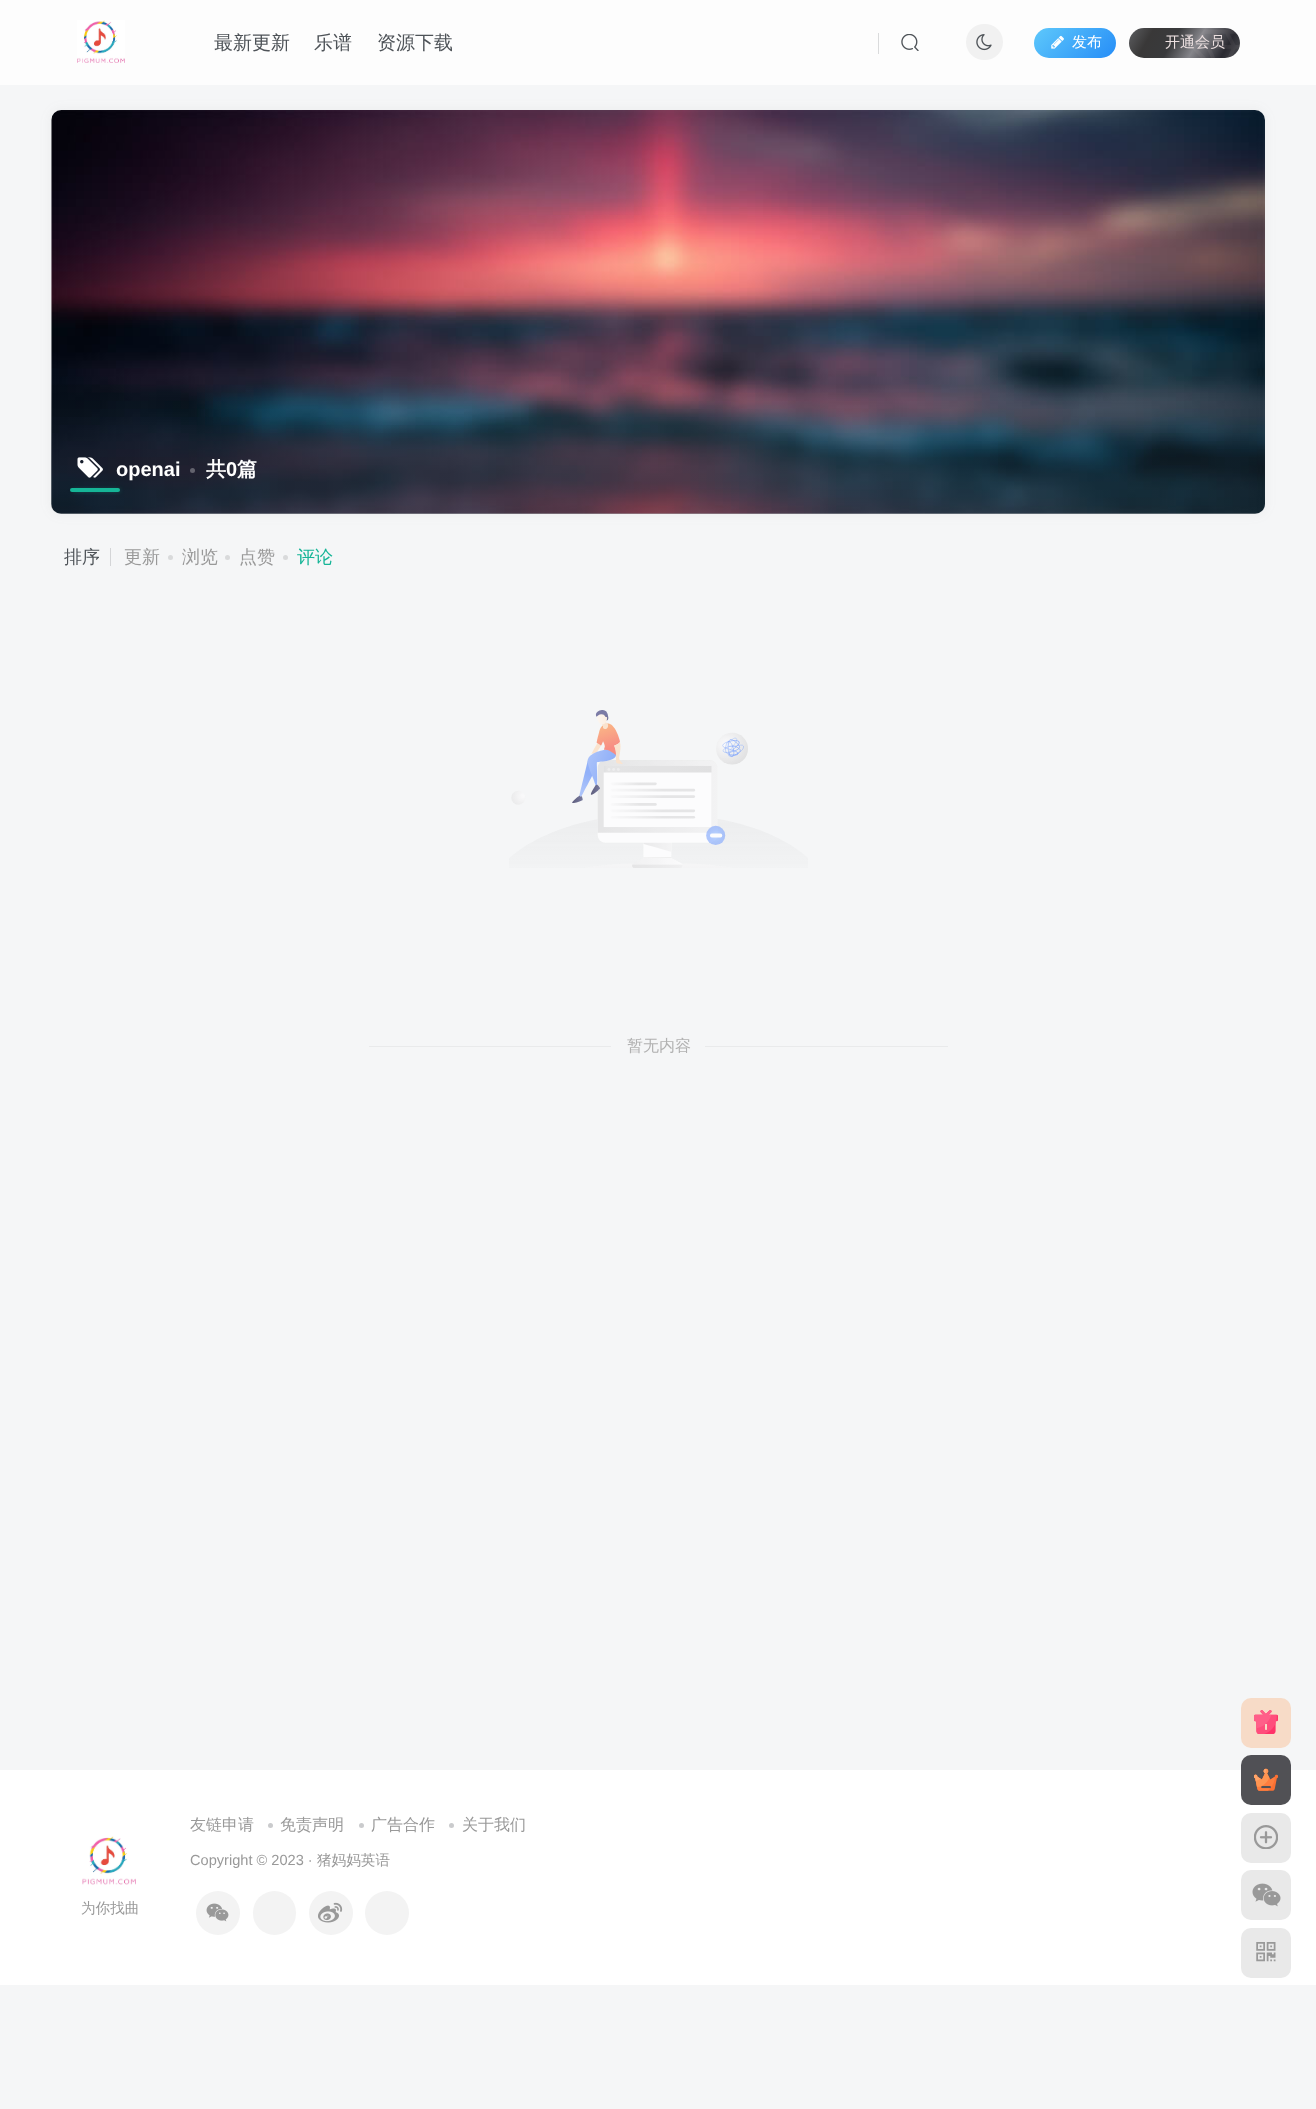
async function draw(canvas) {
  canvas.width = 1316;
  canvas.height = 2109;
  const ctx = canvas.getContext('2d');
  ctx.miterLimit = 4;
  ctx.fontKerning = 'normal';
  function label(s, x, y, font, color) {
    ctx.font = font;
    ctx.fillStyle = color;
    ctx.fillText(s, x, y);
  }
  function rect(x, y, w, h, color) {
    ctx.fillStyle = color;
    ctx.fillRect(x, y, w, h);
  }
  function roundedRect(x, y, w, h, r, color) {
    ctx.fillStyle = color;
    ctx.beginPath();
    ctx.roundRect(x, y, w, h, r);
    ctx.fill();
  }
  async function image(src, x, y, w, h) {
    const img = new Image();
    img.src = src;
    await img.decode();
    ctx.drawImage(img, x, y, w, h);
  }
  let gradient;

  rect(0, 0, 1316, 2109, '#f5f6f7');
  rect(0, 0, 1316, 85, '#fdfdfd');
  await image('assets/img1.png', 77, 20, 48, 43);
  label('最新更新', 214, 49, '500 19px WenQuanYi Zen Hei', '#4e5358');
  label('乐谱', 314, 49, '500 19px WenQuanYi Zen Hei', '#4e5358');
  label('资源下载', 377, 49, '500 19px WenQuanYi Zen Hei', '#4e5358');
  rect(878, 33, 1, 21, '#dadbdc');
  await image('assets/img2.png', 901, 34, 18, 17);
  roundedRect(966, 24, 37, 36, 18, '#f1f1f1');
  await image('assets/img3.png', 976, 34, 16, 17);
  gradient = ctx.createLinearGradient(1047, 14, 1103, 71);
  gradient.addColorStop(0.1, '#59c3fb');
  gradient.addColorStop(1, '#268df7');
  ctx.fillStyle = gradient;
  ctx.beginPath();
  ctx.roundRect(1034, 28, 82, 30, 15);
  ctx.fill();
  await image('assets/img4.png', 1051, 35, 13, 14);
  label('发布', 1072, 47, '500 15px WenQuanYi Zen Hei', '#fff');
  gradient = ctx.createLinearGradient(1233, 70, 1136, 15);
  gradient.addColorStop(0, '#4c4d51');
  gradient.addColorStop(0.15, '#2a2a31');
  gradient.addColorStop(0.4, '#85858a');
  gradient.addColorStop(0.6, '#393a3c');
  gradient.addColorStop(0.8, '#393838');
  gradient.addColorStop(1, '#5e5f62');
  ctx.fillStyle = gradient;
  ctx.beginPath();
  ctx.roundRect(1129, 28, 111, 30, 15);
  ctx.fill();
  label('开通会员', 1165, 47, '500 15px WenQuanYi Zen Hei', '#ece0e0');
  await image('assets/img5.png', 1191, 30, 49, 28);
  ctx.fillStyle = '#74747414';
  ctx.filter = 'blur(6px)';
  ctx.beginPath();
  ctx.roundRect(51, 110, 1214, 404, 10);
  ctx.fill();
  ctx.filter = 'none';
  roundedRect(51, 110, 1214, 404, 10, '#fff');
  await image('assets/img6.png', 51, 110, 1214, 404);
  gradient = ctx.createLinearGradient(658, 514, 658, 110);
  gradient.addColorStop(0.13, '#1d293166');
  gradient.addColorStop(0.35, '#1d293100');
  ctx.fillStyle = gradient;
  ctx.beginPath();
  ctx.roundRect(51, 110, 1214, 404, 10);
  ctx.fill();
  await image('assets/img7.png', 77, 457, 26, 21);
  label('openai', 116, 476, 'bold 20px Liberation Sans', '#fff');
  ctx.fillStyle = '#63636e';
  ctx.beginPath();
  ctx.arc(192.5, 470.5, 2.5, 0, 2 * Math.PI);
  ctx.fill();
  label('共', 206, 476, 'bold 20px WenQuanYi Zen Hei', '#fff');
  label('0', 226, 476, 'bold 20px Liberation Sans', '#fff');
  label('篇', 237, 476, 'bold 20px WenQuanYi Zen Hei', '#fff');
  ctx.fillStyle = '#16b597';
  ctx.filter = 'blur(2px)';
  ctx.beginPath();
  ctx.roundRect(73, 490, 47, 1, 0.5);
  ctx.fill();
  ctx.filter = 'none';
  roundedRect(70, 488, 50, 4, 2, '#16b597');
  label('排序', 64, 563, '500 18px WenQuanYi Zen Hei', '#4e5358');
  rect(110, 548, 1, 18, '#d4d5d7');
  label('更新', 124, 563, '500 18px WenQuanYi Zen Hei', '#999');
  ctx.fillStyle = '#d9dadb';
  ctx.beginPath();
  ctx.arc(170.5, 557.5, 2.5, 0, 2 * Math.PI);
  ctx.fill();
  label('浏览', 182, 563, '500 18px WenQuanYi Zen Hei', '#999');
  ctx.fillStyle = '#d9dadb';
  ctx.beginPath();
  ctx.arc(227.5, 557.5, 2.5, 0, 2 * Math.PI);
  ctx.fill();
  label('点赞', 239, 563, '500 18px WenQuanYi Zen Hei', '#999');
  ctx.fillStyle = '#d9dadb';
  ctx.beginPath();
  ctx.arc(285.5, 557.5, 2.5, 0, 2 * Math.PI);
  ctx.fill();
  label('评论', 297, 563, '500 18px WenQuanYi Zen Hei', '#16b597');
  await image('assets/img8.png', 509, 710, 299, 158);
  rect(369, 1046, 242, 1, '#e9eaeb');
  label('暂无内容', 627, 1051, '500 16px WenQuanYi Zen Hei', '#b1b1b1');
  rect(705, 1046, 243, 1, '#e9eaeb');
  rect(0, 1770, 1316, 215, '#fff');
  label('友链申请', 190, 1830, '500 16px WenQuanYi Zen Hei', '#999');
  ctx.fillStyle = '#cacbcd';
  ctx.beginPath();
  ctx.arc(270.5, 1825.5, 2.5, 0, 2 * Math.PI);
  ctx.fill();
  label('免责声明', 280, 1830, '500 16px WenQuanYi Zen Hei', '#999');
  ctx.fillStyle = '#cacbcd';
  ctx.beginPath();
  ctx.arc(361.5, 1825.5, 2.5, 0, 2 * Math.PI);
  ctx.fill();
  label('广告合作', 371, 1830, '500 16px WenQuanYi Zen Hei', '#999');
  ctx.fillStyle = '#cacbcd';
  ctx.beginPath();
  ctx.arc(451.5, 1825.5, 2.5, 0, 2 * Math.PI);
  ctx.fill();
  label('关于我们', 462, 1830, '500 16px WenQuanYi Zen Hei', '#999');
  label('Copyright © 2023 ·', 190, 1865, '14.6px Liberation Sans', '#999');
  label('猪妈妈英语', 317, 1865, '500 14.6px WenQuanYi Zen Hei', '#999');
  ctx.fillStyle = '#f3f3f3';
  ctx.beginPath();
  ctx.arc(218, 1913, 22, 0, 2 * Math.PI);
  ctx.fill();
  await image('assets/img9.png', 206, 1903, 23, 19);
  roundedRect(253, 1891, 43, 44, 21.5, '#f3f3f3');
  ctx.beginPath();
  ctx.arc(331, 1913, 22, 0, 2 * Math.PI);
  ctx.fill();
  await image('assets/img10.png', 318, 1902, 25, 21);
  ctx.beginPath();
  ctx.arc(387, 1913, 22, 0, 2 * Math.PI);
  ctx.fill();
  await image('assets/img11.png', 82, 1836, 54, 49);
  label('为你找曲', 81, 1913, '500 14.6px WenQuanYi Zen Hei', '#999');
  roundedRect(1241, 1698, 50, 50, 10, '#f7dbc7');
  await image('assets/img12.png', 1254, 1710, 24, 24);
  roundedRect(1241, 1755, 50, 50, 10, '#3e3e43e6');
  await image('assets/img13.png', 1254, 1768, 24, 23);
  roundedRect(1241, 1813, 50, 50, 10, '#e9e9e9');
  await image('assets/img14.png', 1254, 1825, 24, 24);
  roundedRect(1241, 1870, 50, 50, 10, '#e9e9e9');
  await image('assets/img15.png', 1252, 1883, 29, 24);
  roundedRect(1241, 1928, 50, 50, 10, '#e9e9e9');
  await image('assets/img16.png', 1256, 1942, 20, 20);
}

draw(document.querySelector('canvas'));
